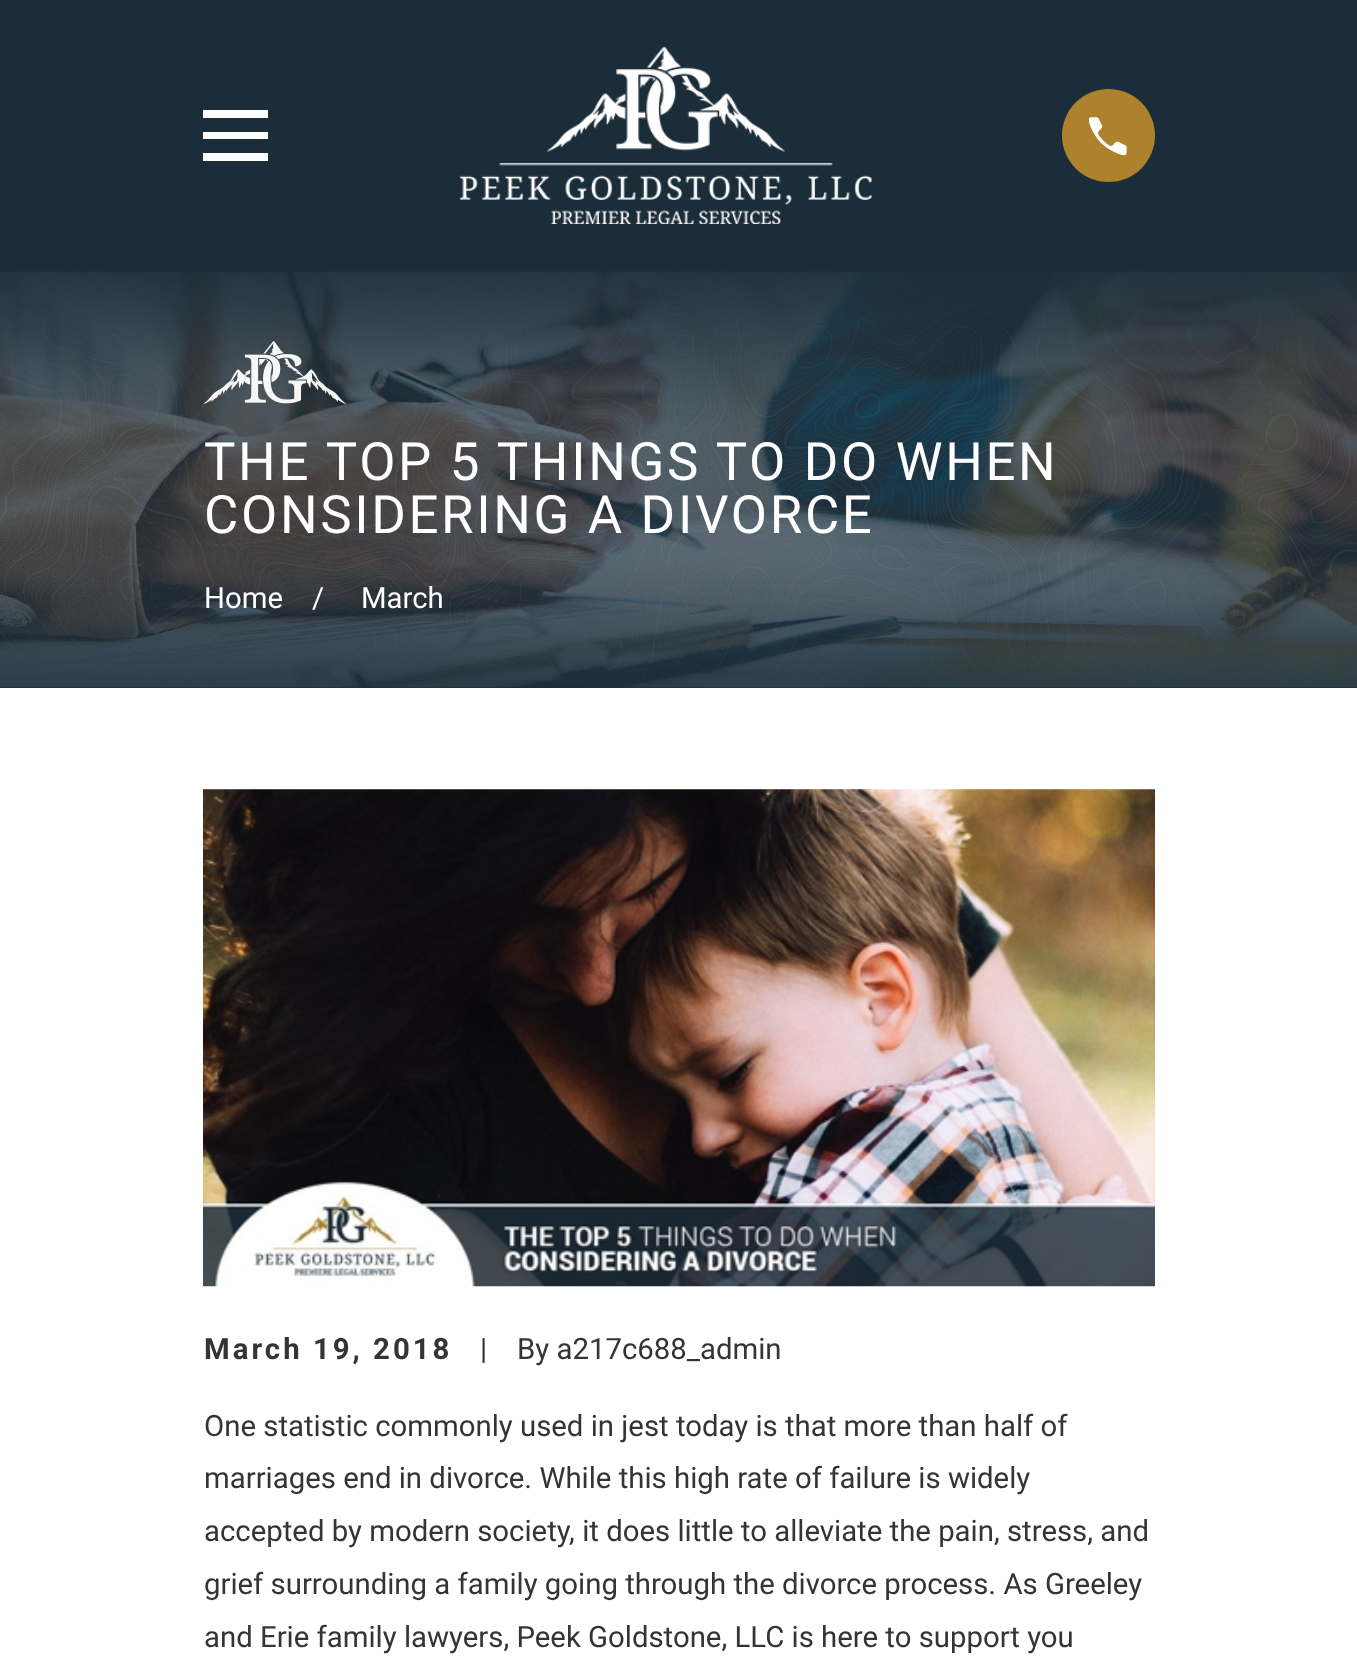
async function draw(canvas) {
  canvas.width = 1357;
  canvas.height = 1657;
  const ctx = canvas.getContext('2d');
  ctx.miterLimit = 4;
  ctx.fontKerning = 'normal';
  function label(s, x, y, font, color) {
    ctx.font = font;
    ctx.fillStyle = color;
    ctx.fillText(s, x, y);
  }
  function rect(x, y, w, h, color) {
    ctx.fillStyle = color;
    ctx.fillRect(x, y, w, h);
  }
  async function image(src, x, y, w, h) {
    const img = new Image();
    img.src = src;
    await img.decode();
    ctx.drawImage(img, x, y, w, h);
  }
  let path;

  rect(0, 0, 1357, 1657, '#fff');
  rect(0, 0, 1357, 688, '#1b2d39');
  ctx.fillStyle = '#fff';
  path = new Path2D('M203 110V118H268V110ZM203 132V139H268V132ZM203 153V161H268V153Z');
  ctx.fill(path);
  await image('assets/img1.png', 460, 47, 412, 177);
  ctx.fillStyle = '#ae822c';
  ctx.beginPath();
  ctx.arc(1108.5, 135.5, 46.5, 0, 2 * Math.PI);
  ctx.fill();
  await image('assets/img2.png', 1089, 117, 38, 39);
  await image('assets/img3.png', 0, 271, 1357, 417);
  await image('assets/img4.png', 203, 341, 144, 64);
  ctx.letterSpacing = '2.65px';
  label('THE TOP 5 THINGS TO DO WHEN', 204, 480, '52.75px Roboto', '#fff');
  label('CONSIDERING A DIVORCE', 204, 533, '52.75px Roboto', '#fff');
  ctx.letterSpacing = '0px';
  label('Home', 204, 608, '29.35px Roboto', '#fff');
  label('/', 312, 608, '29.35px Roboto', '#fff');
  label('March', 361, 608, '29.35px Roboto', '#fff');
  await image('assets/img5.png', 203, 789, 952, 498);
  ctx.letterSpacing = '3px';
  label('March 19, 2018', 204, 1359, 'bold 29.35px Roboto', '#343434');
  ctx.letterSpacing = '0px';
  label('|', 480, 1359, '29.35px Roboto', '#343434');
  label('By a217c688_admin', 517, 1359, '29.35px Roboto', '#343434');
  label('One statistic commonly used in jest today is that more than half of', 204, 1436, '29.35px Roboto', '#343434');
  label('marriages end in divorce. While this high rate of failure is widely', 204, 1488, '29.35px Roboto', '#343434');
  label('accepted by modern society, it does little to alleviate the pain, stress, and', 204, 1541, '29.35px Roboto', '#343434');
  label('grief surrounding a family going through the divorce process. As Greeley', 204, 1594, '29.35px Roboto', '#343434');
  label('and Erie family lawyers, Peek Goldstone, LLC is here to support you', 204, 1647, '29.35px Roboto', '#343434');
}

draw(document.querySelector('canvas'));
